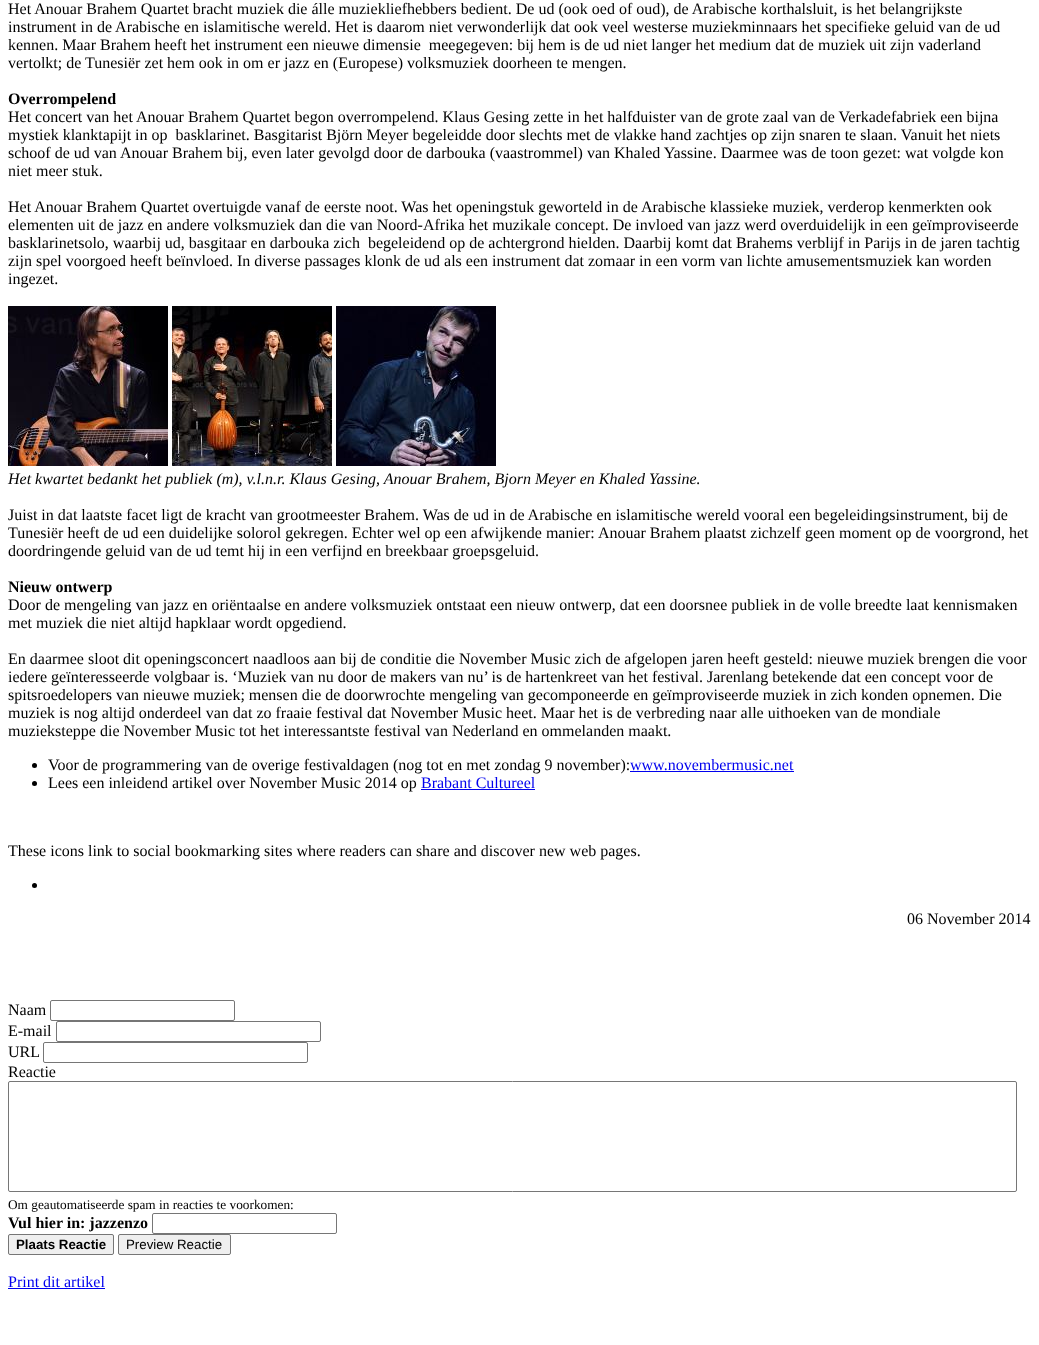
async function draw(canvas) {
  canvas.width = 1039;
  canvas.height = 1345;
  const ctx = canvas.getContext('2d');
  ctx.miterLimit = 4;
  ctx.fontKerning = 'normal';
  function label(s, x, y, font, color) {
    ctx.font = font;
    ctx.fillStyle = color;
    ctx.fillText(s, x, y);
  }
  function rect(x, y, w, h, color) {
    ctx.fillStyle = color;
    ctx.fillRect(x, y, w, h);
  }
  async function image(src, x, y, w, h) {
    const img = new Image();
    img.src = src;
    await img.decode();
    ctx.drawImage(img, x, y, w, h);
  }

  rect(0, 0, 1039, 1345, '#fff');
  label('Het Anouar Brahem Quartet bracht muziek die álle muziekliefhebbers bedient. De ud (ook oed of oud), de Arabische korthalsluit, is het belangrijkste', 8, 14, '16px Liberation Serif', '#000');
  label('instrument in de Arabische en islamitische wereld. Het is daarom niet verwonderlijk dat ook veel westerse muziekminnaars het specifieke geluid van de ud', 8, 32, '16px Liberation Serif', '#000');
  label('kennen. Maar Brahem heeft het instrument een nieuwe dimensie  meegegeven: bij hem is de ud niet langer het medium dat de muziek uit zijn vaderland', 8, 50, '16px Liberation Serif', '#000');
  label('vertolkt; de Tunesiër zet hem ook in om er jazz en (Europese) volksmuziek doorheen te mengen.', 8, 68, '16px Liberation Serif', '#000');
  label('Overrompelend', 8, 104, 'bold 16px Liberation Serif', '#000');
  label('Het concert van het Anouar Brahem Quartet begon overrompelend. Klaus Gesing zette in het halfduister van de grote zaal van de Verkadefabriek een bijna', 8, 122, '16px Liberation Serif', '#000');
  label('mystiek klanktapijt in op  basklarinet. Basgitarist Björn Meyer begeleidde door slechts met de vlakke hand zachtjes op zijn snaren te slaan. Vanuit het niets', 8, 140, '16px Liberation Serif', '#000');
  label('schoof de ud van Anouar Brahem bij, even later gevolgd door de darbouka (vaastrommel) van Khaled Yassine. Daarmee was de toon gezet: wat volgde kon', 8, 158, '16px Liberation Serif', '#000');
  label('niet meer stuk.', 8, 176, '16px Liberation Serif', '#000');
  label('Het Anouar Brahem Quartet overtuigde vanaf de eerste noot. Was het openingstuk geworteld in de Arabische klassieke muziek, verderop kenmerkten ook', 8, 212, '16px Liberation Serif', '#000');
  label('elementen uit de jazz en andere volksmuziek dan die van Noord-Afrika het muzikale concept. De invloed van jazz werd overduidelijk in een geïmproviseerde', 8, 230, '16px Liberation Serif', '#000');
  label('basklarinetsolo, waarbij ud, basgitaar en darbouka zich  begeleidend op de achtergrond hielden. Daarbij komt dat Brahems verblijf in Parijs in de jaren tachtig', 8, 248, '16px Liberation Serif', '#000');
  label('zijn spel voorgoed heeft beïnvloed. In diverse passages klonk de ud als een instrument dat zomaar in een vorm van lichte amusementsmuziek kan worden', 8, 266, '16px Liberation Serif', '#000');
  label('ingezet.', 8, 284, '16px Liberation Serif', '#000');
  await image('assets/img1.png', 8, 306, 160, 160);
  await image('assets/img2.png', 172, 306, 160, 160);
  await image('assets/img3.png', 336, 306, 160, 160);
  label('Het kwartet bedankt het publiek (m), v.l.n.r. Klaus Gesing, Anouar Brahem, Bjorn Meyer en Khaled Yassine.', 8, 484, 'italic 16px Liberation Serif', '#000');
  label('Juist in dat laatste facet ligt de kracht van grootmeester Brahem. Was de ud in de Arabische en islamitische wereld vooral een begeleidingsinstrument, bij de', 8, 520, '16px Liberation Serif', '#000');
  label('Tunesiër heeft de ud een duidelijke solorol gekregen. Echter wel op een afwijkende manier: Anouar Brahem plaatst zichzelf geen moment op de voorgrond, het', 8, 538, '16px Liberation Serif', '#000');
  label('doordringende geluid van de ud temt hij in een verfijnd en breekbaar groepsgeluid.', 8, 556, '16px Liberation Serif', '#000');
  label('Nieuw ontwerp', 8, 592, 'bold 16px Liberation Serif', '#000');
  label('Door de mengeling van jazz en oriëntaalse en andere volksmuziek ontstaat een nieuw ontwerp, dat een doorsnee publiek in de volle breedte laat kennismaken', 8, 610, '16px Liberation Serif', '#000');
  label('met muziek die niet altijd hapklaar wordt opgediend.', 8, 628, '16px Liberation Serif', '#000');
  label('En daarmee sloot dit openingsconcert naadloos aan bij de conditie die November Music zich de afgelopen jaren heeft gesteld: nieuwe muziek brengen die voor', 8, 664, '16px Liberation Serif', '#000');
  label('iedere geïnteresseerde volgbaar is. ‘Muziek van nu door de makers van nu’ is de hartenkreet van het festival. Jarenlang betekende dat een concept voor de', 8, 682, '16px Liberation Serif', '#000');
  label('spitsroedelopers van nieuwe muziek; mensen die de doorwrochte mengeling van gecomponeerde en geïmproviseerde muziek in zich konden opnemen. Die', 8, 700, '16px Liberation Serif', '#000');
  label('muziek is nog altijd onderdeel van dat zo fraaie festival dat November Music heet. Maar het is de verbreding naar alle uithoeken van de mondiale', 8, 718, '16px Liberation Serif', '#000');
  label('muzieksteppe die November Music tot het interessantste festival van Nederland en ommelanden maakt.', 8, 736, '16px Liberation Serif', '#000');
  ctx.beginPath();
  ctx.arc(34.5, 765.5, 2.5, 0, 2 * Math.PI);
  ctx.fill();
  label('Voor de programmering van de overige festivaldagen (nog tot en met zondag 9 november):', 48, 770, '16px Liberation Serif', '#000');
  label('www.novembermusic.net', 630, 770, '16px Liberation Serif', '#00e');
  rect(630, 771, 164, 1, '#00e');
  ctx.fillStyle = '#000';
  ctx.beginPath();
  ctx.arc(34.5, 783.5, 2.5, 0, 2 * Math.PI);
  ctx.fill();
  label('Lees een inleidend artikel over November Music 2014 op', 48, 788, '16px Liberation Serif', '#000');
  label('Brabant Cultureel', 421, 788, '16px Liberation Serif', '#00e');
  rect(421, 789, 114, 1, '#00e');
  label('These icons link to social bookmarking sites where readers can share and discover new web pages.', 8, 856, '16px Liberation Serif', '#000');
  ctx.beginPath();
  ctx.arc(34.5, 885.5, 2.5, 0, 2 * Math.PI);
  ctx.fill();
  label('06 November 2014', 907, 924, '16px Liberation Serif', '#000');
  label('Naam', 8, 1015, '16px Liberation Serif', '#000');
  ctx.beginPath();
  ctx.roundRect(50.5, 1000.5, 184, 20, 1.5);
  ctx.strokeStyle = '#767676';
  ctx.stroke();
  label('E-mail', 8, 1036, '16px Liberation Serif', '#000');
  ctx.beginPath();
  ctx.roundRect(56.5, 1021.5, 264, 20, 1.5);
  ctx.stroke();
  label('URL', 8, 1057, '16px Liberation Serif', '#000');
  ctx.beginPath();
  ctx.roundRect(43.5, 1042.5, 264, 20, 1.5);
  ctx.stroke();
  label('Reactie', 8, 1077, '16px Liberation Serif', '#000');
  ctx.beginPath();
  ctx.roundRect(8.5, 1081.5, 1008, 110, 1.5);
  ctx.stroke();
  label('Om geautomatiseerde spam in reacties te voorkomen:', 8, 1209, '13.3px Liberation Serif', '#000');
  label('Vul hier in: jazzenzo', 8, 1228, 'bold 16px Liberation Serif', '#000');
  ctx.beginPath();
  ctx.roundRect(152.5, 1213.5, 184, 20, 1.5);
  ctx.stroke();
  ctx.fillStyle = '#efefef';
  ctx.beginPath();
  ctx.roundRect(8.5, 1234.5, 105, 20, 1.5);
  ctx.fill();
  ctx.stroke();
  label('Plaats Reactie', 16, 1249, 'bold 13.3px Liberation Sans', '#000');
  ctx.fillStyle = '#efefef';
  ctx.beginPath();
  ctx.roundRect(118.5, 1234.5, 112, 20, 1.5);
  ctx.fill();
  ctx.stroke();
  label('Preview Reactie', 126, 1249, '13.3px Liberation Sans', '#000');
  label('Print dit artikel', 8, 1287, '16px Liberation Serif', '#00e');
  rect(8, 1288, 97, 1, '#00e');
}

draw(document.querySelector('canvas'));
